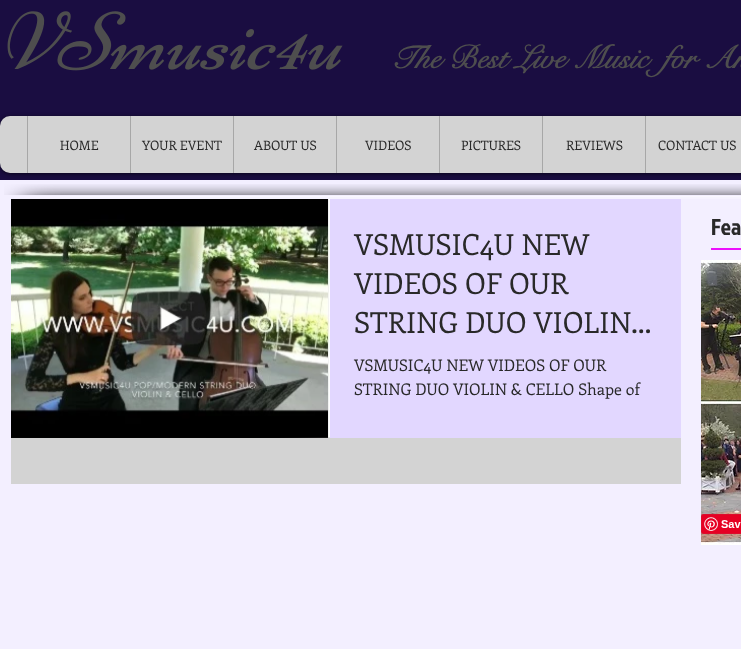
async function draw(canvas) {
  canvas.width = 741;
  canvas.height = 649;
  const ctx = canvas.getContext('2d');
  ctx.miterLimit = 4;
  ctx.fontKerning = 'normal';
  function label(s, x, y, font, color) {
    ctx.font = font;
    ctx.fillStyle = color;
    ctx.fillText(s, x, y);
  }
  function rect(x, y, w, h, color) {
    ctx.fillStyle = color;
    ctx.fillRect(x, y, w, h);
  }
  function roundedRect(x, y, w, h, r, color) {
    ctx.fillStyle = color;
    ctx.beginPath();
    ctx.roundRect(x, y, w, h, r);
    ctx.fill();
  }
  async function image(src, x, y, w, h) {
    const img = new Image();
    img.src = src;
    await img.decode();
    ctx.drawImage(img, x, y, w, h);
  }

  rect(0, 0, 741, 649, '#1a0d41');
  await image('assets/img1.png', 7, 11, 336, 60);
  label('The Best Live Music  for An', 391, 68, 'bold 32px "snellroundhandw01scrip"', '#4e4e4e');
  ctx.fillStyle = '#00000099';
  ctx.filter = 'blur(2px)';
  ctx.beginPath();
  ctx.roundRect(0, 117, 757, 57, 10);
  ctx.fill();
  ctx.filter = 'none';
  roundedRect(0, 116, 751, 57, 10, '#d3d3d3');
  rect(27, 116, 1, 57, '#a7a7a7');
  label('HOME', 60, 150, '13px Enriqueta', '#292929');
  rect(130, 116, 1, 57, '#a7a7a7');
  label('YOUR EVENT', 142, 150, '13px Enriqueta', '#292929');
  rect(233, 116, 1, 57, '#a7a7a7');
  label('ABOUT US', 254, 150, '13px Enriqueta', '#292929');
  rect(336, 116, 1, 57, '#a7a7a7');
  label('VIDEOS', 365, 150, '13px Enriqueta', '#292929');
  rect(439, 116, 1, 57, '#a7a7a7');
  label('PICTURES', 461, 150, '13px Enriqueta', '#292929');
  rect(542, 116, 1, 57, '#a7a7a7');
  label('REVIEWS', 566, 150, '13px Enriqueta', '#292929');
  rect(645, 116, 1, 57, '#a7a7a7');
  label('CONTACT US', 658, 150, '13px Enriqueta', '#292929');
  rect(0, 180, 741, 469, '#f3efff');
  await image('assets/img2.png', 4, 184, 97, 15);
  await image('assets/img3.png', 101, 184, 640, 15);
  label('Fea', 711, 235, '23px Jockey One', '#292929');
  rect(11, 438, 670, 46, '#d3d3d3');
  await image('assets/img5.png', 11, 437, 319, 1);
  await image('assets/img4.png', 11, 199, 319, 239);
  rect(330, 199, 351, 239, '#e2d7ff');
  label('VSMUSIC4U NEW', 354, 255, '29px Enriqueta', '#292929');
  label('VIDEOS OF OUR', 354, 294, '29px Enriqueta', '#292929');
  label('STRING DUO VIOLIN…', 354, 333, '29px Enriqueta', '#292929');
  label('VSMUSIC4U NEW VIDEOS OF OUR', 354, 371, '16px Enriqueta', '#292929');
  label('STRING DUO VIOLIN & CELLO Shape of', 354, 395, '16px Enriqueta', '#292929');
  rect(711, 248, 30, 2, '#ec0ffc');
  await image('assets/img6.png', 701, 260, 40, 285);
  await image('assets/img7.png', 701, 514, 40, 20);
}

draw(document.querySelector('canvas'));
